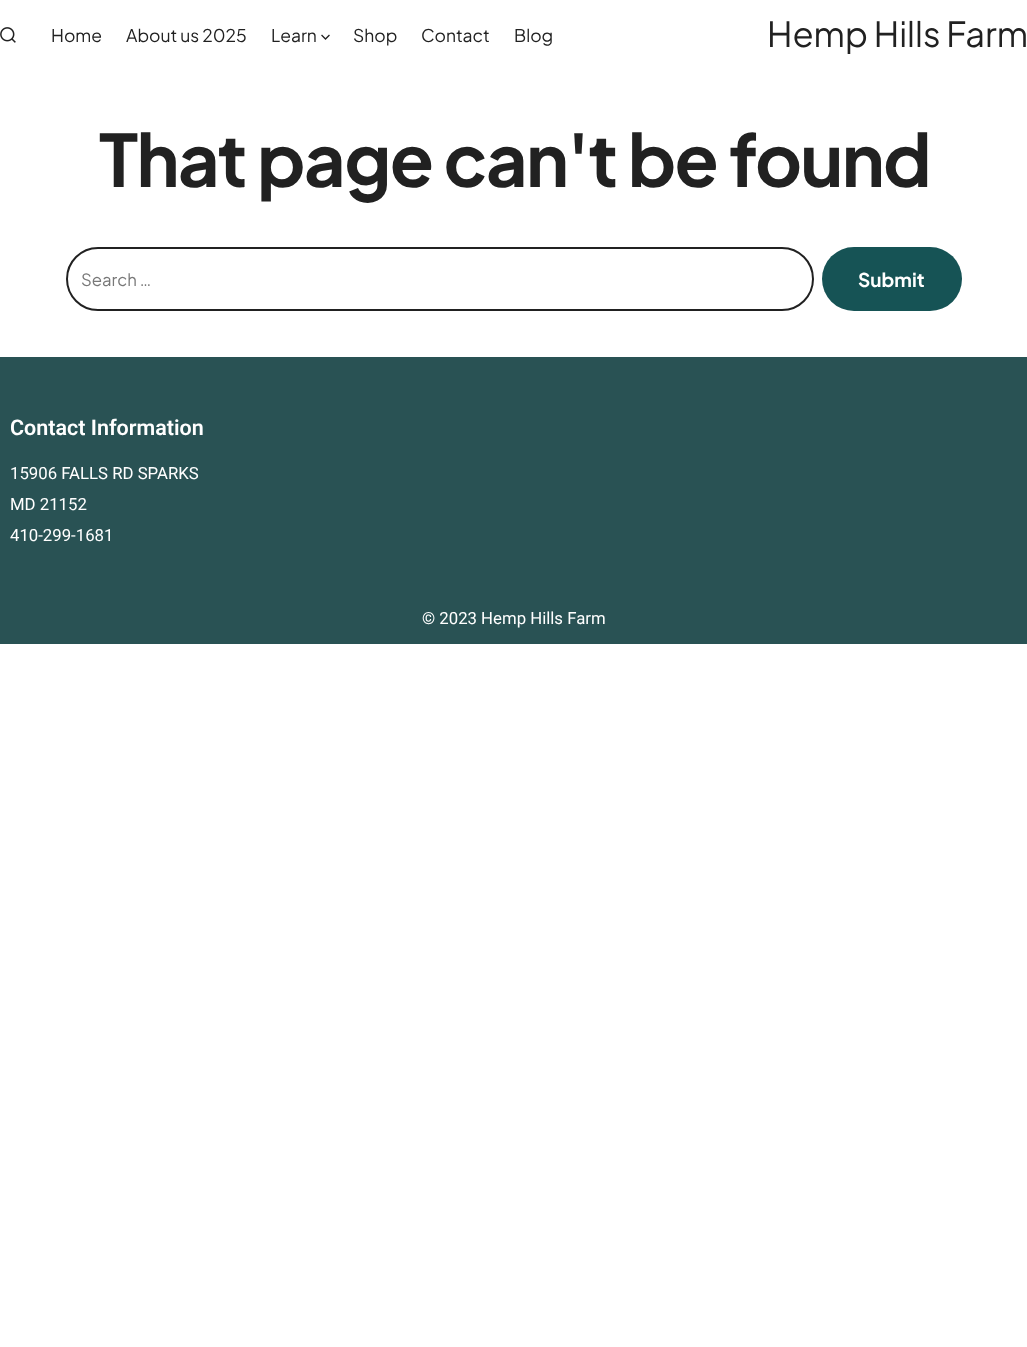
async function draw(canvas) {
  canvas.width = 1027;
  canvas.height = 1347;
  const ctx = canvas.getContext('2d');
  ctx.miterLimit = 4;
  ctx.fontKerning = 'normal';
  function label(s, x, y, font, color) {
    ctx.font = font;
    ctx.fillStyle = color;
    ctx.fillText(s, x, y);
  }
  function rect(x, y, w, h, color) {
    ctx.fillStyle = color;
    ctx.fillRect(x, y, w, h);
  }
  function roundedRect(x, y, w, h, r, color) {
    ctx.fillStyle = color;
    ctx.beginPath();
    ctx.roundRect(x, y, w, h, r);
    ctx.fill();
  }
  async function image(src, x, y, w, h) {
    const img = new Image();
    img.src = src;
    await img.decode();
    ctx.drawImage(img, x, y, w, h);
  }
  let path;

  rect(0, 0, 1027, 1347, '#fff');
  await image('assets/img1.png', 0, 27, 16, 16);
  label('Home', 51, 42, '17.5px Plus Jakarta Sans', '#212121');
  label('About us 2025', 126, 42, '17.5px Plus Jakarta Sans', '#212121');
  label('Learn', 271, 42, '17.5px Plus Jakarta Sans', '#212121');
  path = new Path2D('M322 35.5L325.5 39L329 35.5');
  ctx.strokeStyle = '#212121';
  ctx.lineWidth = 1.3;
  ctx.lineCap = 'square';
  ctx.stroke(path);
  label('Shop', 353, 42, '17.5px Plus Jakarta Sans', '#212121');
  label('Contact', 421, 42, '17.5px Plus Jakarta Sans', '#212121');
  label('Blog', 514, 42, '17.5px Plus Jakarta Sans', '#212121');
  label('Hemp Hills Farm', 767, 47, '34.5px Plus Jakarta Sans', '#212121');
  ctx.letterSpacing = '-1.6px';
  label('That page can\'t be found', 99, 187, 'bold 72.25px Plus Jakarta Sans', '#212121');
  ctx.beginPath();
  ctx.roundRect(67, 248, 746, 62, 31);
  ctx.lineWidth = 2;
  ctx.stroke();
  ctx.letterSpacing = '0px';
  label('Search …', 81, 286, '16.75px Plus Jakarta Sans', '#787878');
  roundedRect(822, 247, 140, 64, 32, '#165355');
  label('Submit', 858, 287, 'bold 19px Plus Jakarta Sans', '#fff');
  rect(0, 357, 1027, 287, '#295254');
  label('Contact Information', 10, 435, '600 21.5px Roboto', '#fff');
  label('15906 FALLS RD SPARKS', 10, 479, '16.75px Roboto', '#fff');
  label('MD 21152', 10, 510, '16.75px Roboto', '#fff');
  label('410-299-1681', 10, 541, '16.75px Roboto', '#fff');
  label('© 2023 Hemp Hills Farm', 422, 624, '16.75px Roboto', '#fff');
}

draw(document.querySelector('canvas'));
